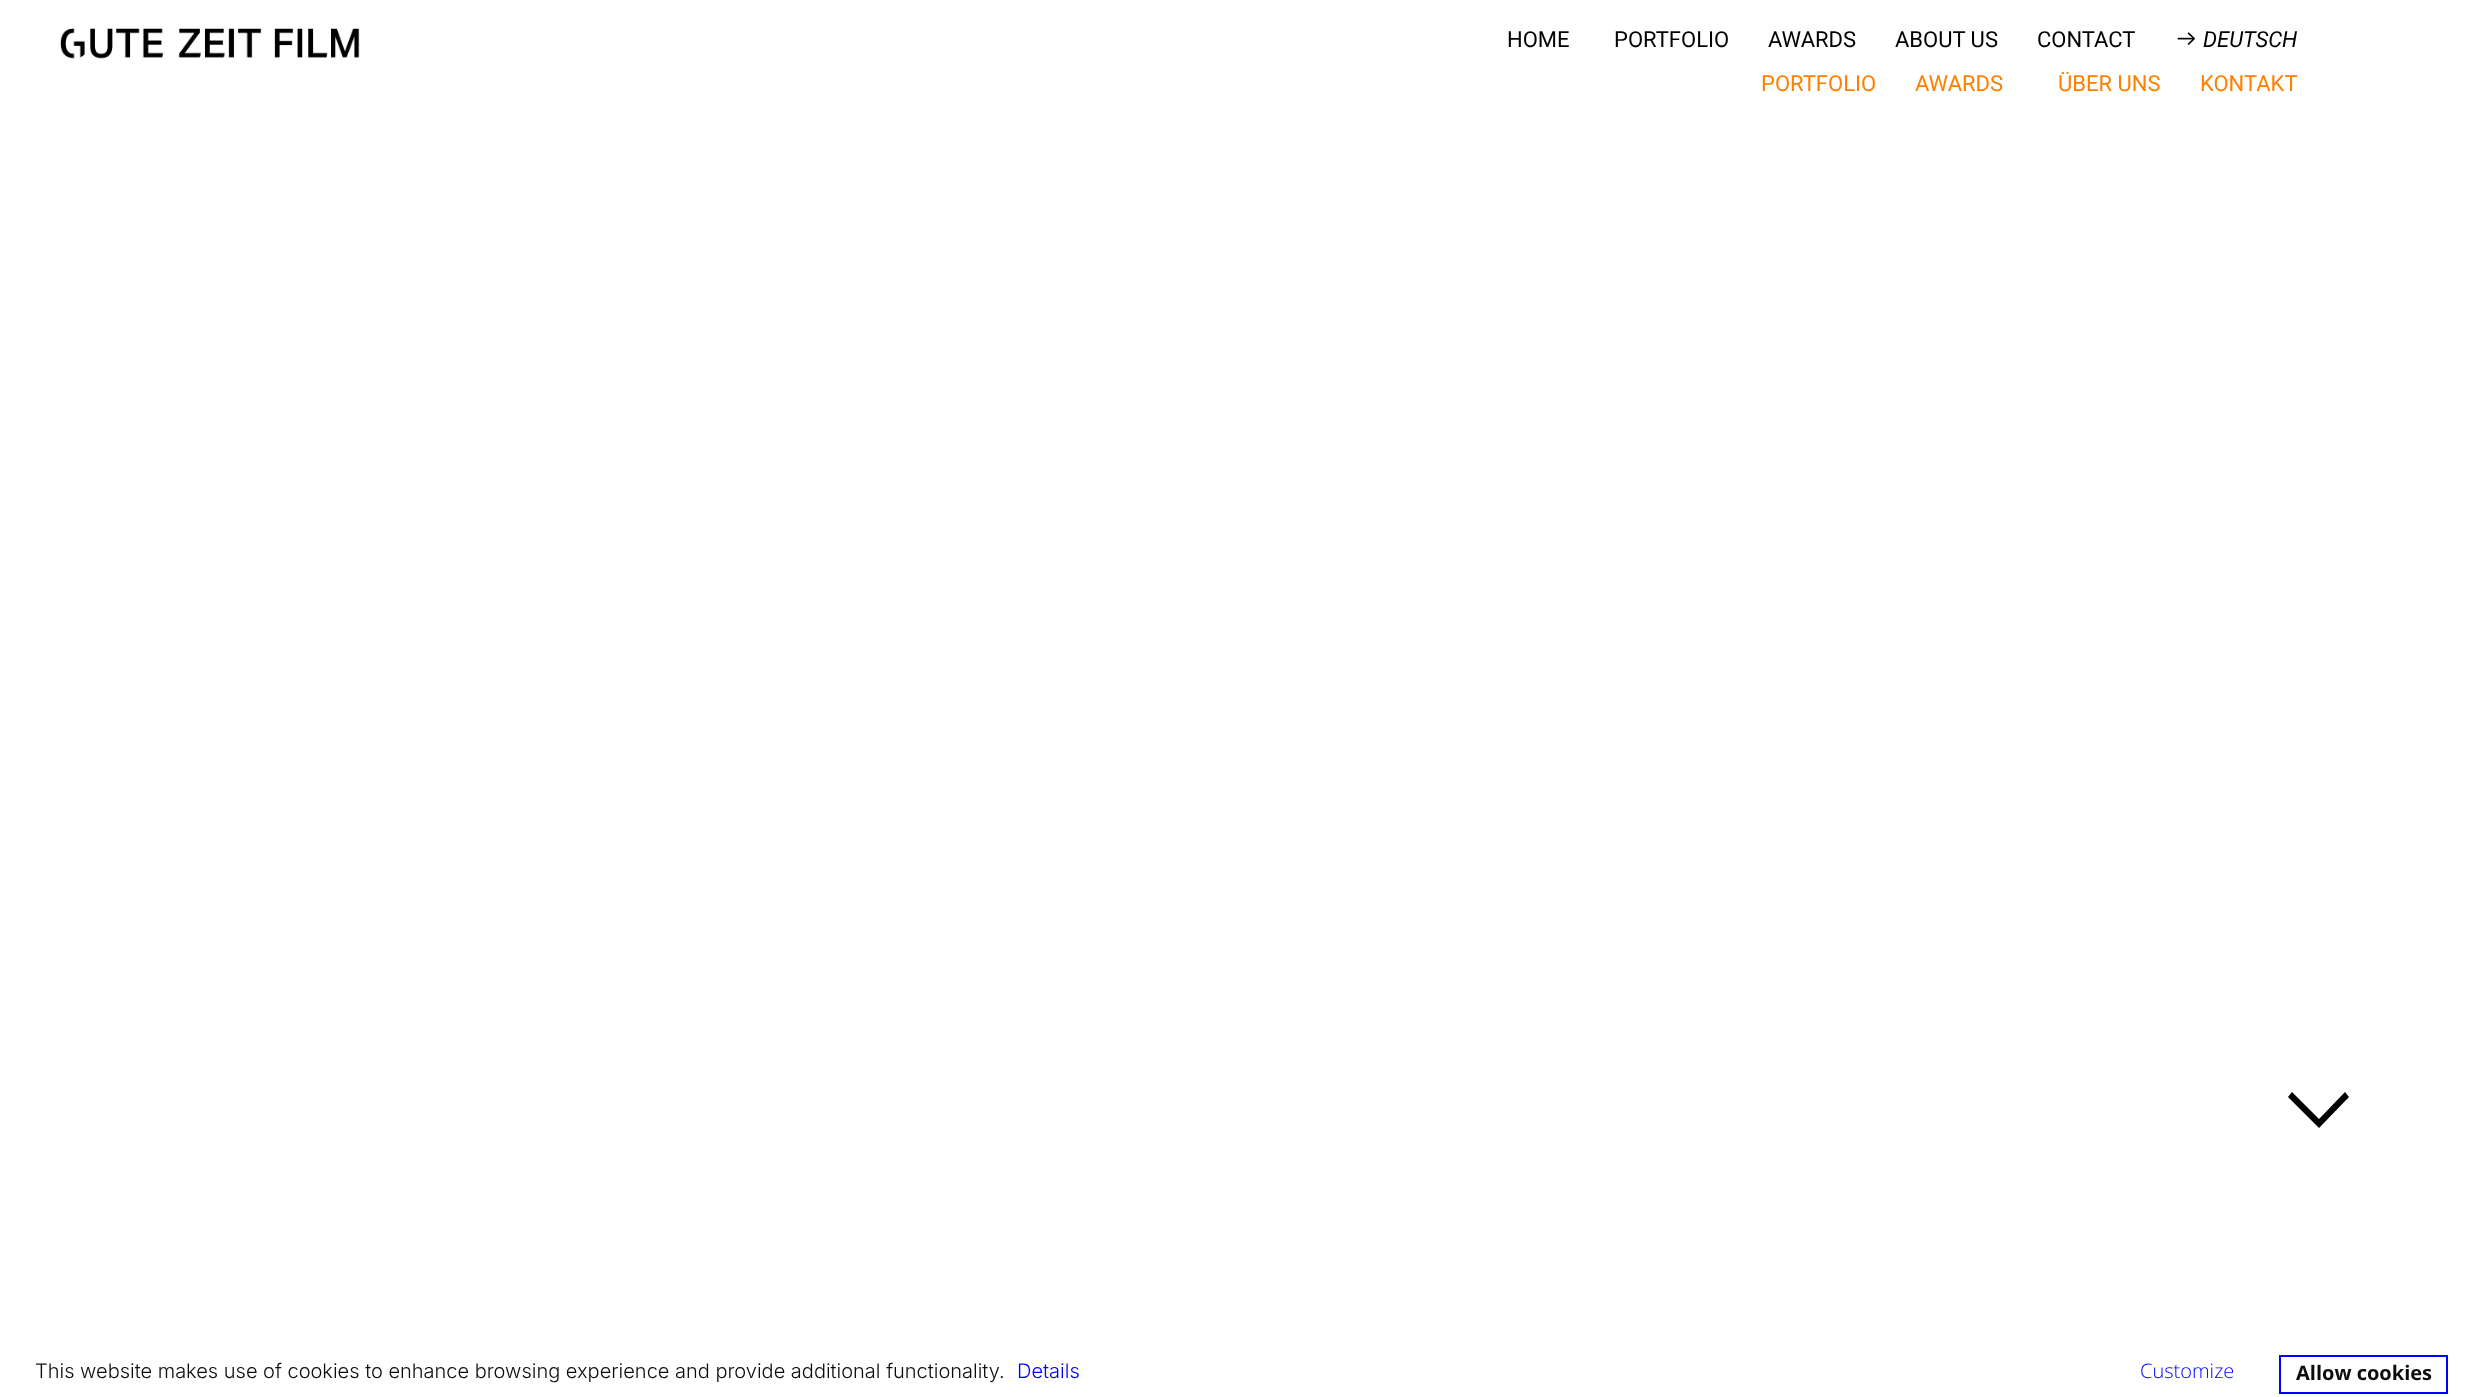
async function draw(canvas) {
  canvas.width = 2482;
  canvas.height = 1397;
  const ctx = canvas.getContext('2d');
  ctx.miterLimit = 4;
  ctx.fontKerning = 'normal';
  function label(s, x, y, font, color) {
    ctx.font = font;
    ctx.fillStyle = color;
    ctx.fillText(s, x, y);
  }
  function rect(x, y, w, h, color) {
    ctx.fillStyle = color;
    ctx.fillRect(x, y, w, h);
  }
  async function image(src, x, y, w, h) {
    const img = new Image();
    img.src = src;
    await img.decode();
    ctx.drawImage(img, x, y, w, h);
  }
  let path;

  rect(0, 0, 2482, 1397, '#fff');
  await image('assets/img1.png', 60, 28, 300, 31);
  label('HOME', 1507, 47, '22px Roboto', '#000');
  label('PORTFOLIO', 1614, 47, '22px Roboto', '#000');
  label('AWARDS', 1768, 47, '22px Roboto', '#000');
  label('ABOUT US', 1895, 47, '22px Roboto', '#000');
  label('CONTACT', 2037, 47, '22px Roboto', '#000');
  await image('assets/img2.png', 2177, 32, 19, 13);
  label('DEUTSCH', 2203, 47, 'italic 22px Roboto', '#000');
  label('PORTFOLIO', 1761, 91, '22px Roboto', '#ff7f00');
  label('AWARDS', 1915, 91, '22px Roboto', '#ff7f00');
  label('ÜBER UNS', 2058, 91, '22px Roboto', '#ff7f00');
  label('KONTAKT', 2200, 91, '22px Roboto', '#ff7f00');
  ctx.fillStyle = '#000';
  path = new Path2D('M2319 1128L2349 1097L2345 1092L2319 1119L2292 1092L2288 1097Z');
  ctx.fill(path);
  label('This website makes use of cookies to enhance browsing experience and provide additional functionality.', 35, 1378, '300 20px Inter', '#0c0c0c');
  label('Details', 1017, 1378, '300 20px Inter', '#00f');
  label('Customize', 2140, 1378, '300 20px Open Sans', '#00f');
  ctx.strokeStyle = '#00f';
  ctx.lineWidth = 2;
  ctx.strokeRect(2280, 1356, 167, 37);
  label('Allow cookies', 2296, 1380, 'bold 20px Open Sans', '#0c0c0c');
}

draw(document.querySelector('canvas'));
